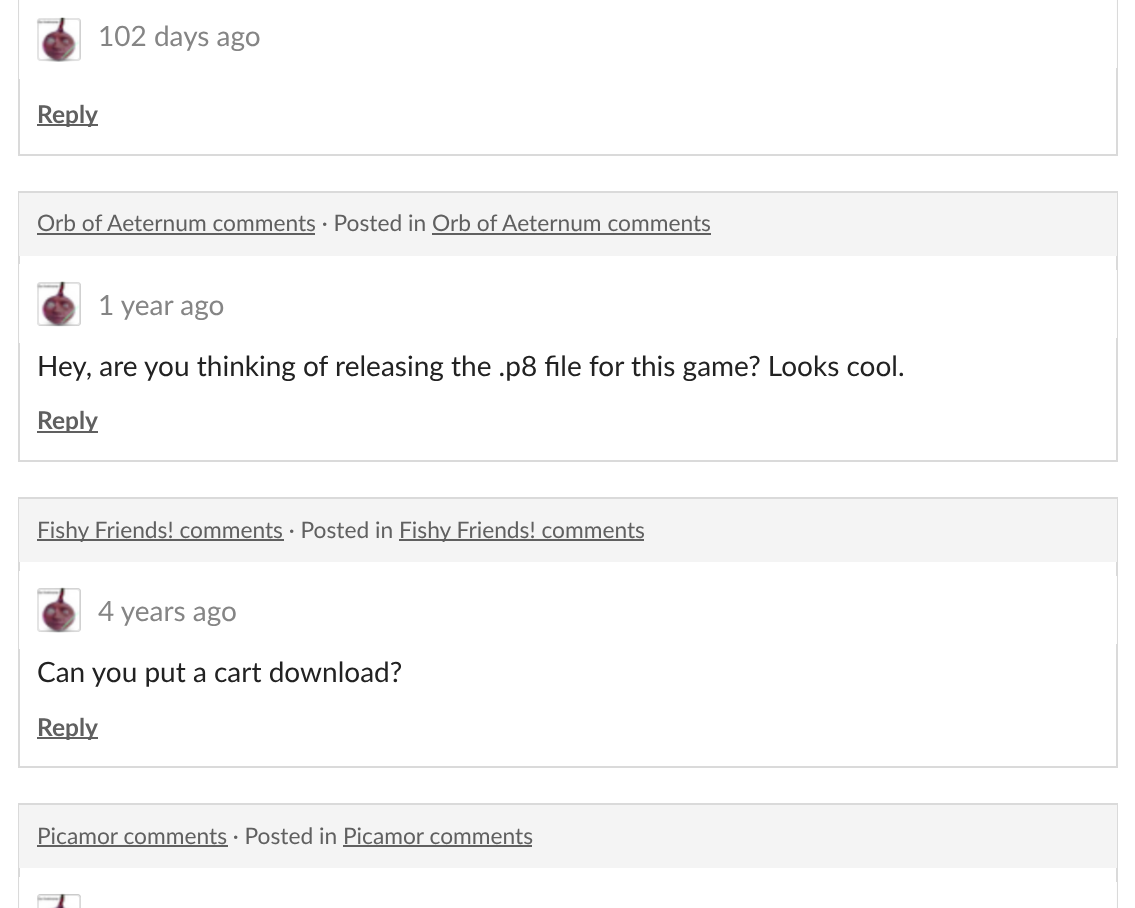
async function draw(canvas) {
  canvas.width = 1135;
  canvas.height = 908;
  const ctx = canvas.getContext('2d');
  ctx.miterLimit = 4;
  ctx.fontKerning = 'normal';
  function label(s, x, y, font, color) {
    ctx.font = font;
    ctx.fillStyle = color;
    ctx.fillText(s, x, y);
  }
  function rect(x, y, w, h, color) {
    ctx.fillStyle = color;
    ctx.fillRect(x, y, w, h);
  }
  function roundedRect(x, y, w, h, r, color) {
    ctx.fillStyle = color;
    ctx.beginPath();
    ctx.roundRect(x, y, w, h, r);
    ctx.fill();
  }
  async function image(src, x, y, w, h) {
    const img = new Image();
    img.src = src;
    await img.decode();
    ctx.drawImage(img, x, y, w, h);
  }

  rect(0, 0, 1135, 908, '#fff');
  ctx.strokeStyle = '#dadada';
  ctx.lineWidth = 2;
  ctx.strokeRect(19, -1, 1098, 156);
  ctx.strokeStyle = '#fffffff2';
  ctx.lineWidth = 18;
  ctx.strokeRect(28, 9, 61, 61);
  roundedRect(37, 18, 44, 43, 4, '#00000033');
  await image('assets/img1.png', 36, 17, 45, 45);
  ctx.beginPath();
  ctx.roundRect(38, 19, 42, 41, 3);
  ctx.strokeStyle = '#0000001a';
  ctx.lineWidth = 2;
  ctx.stroke();
  ctx.strokeStyle = '#fffffff2';
  ctx.lineWidth = 18;
  ctx.strokeRect(90, 9, 1018, 50);
  label('102 days ago', 98, 46, '28px Lato', '#858585');
  rect(37, 124, 61, 2, '#606060');
  label('Reply', 37, 123, 'bold 24.5px Lato', '#606060');
  ctx.strokeStyle = '#dadada';
  ctx.lineWidth = 2;
  ctx.strokeRect(19, 192, 1098, 269);
  rect(19, 193, 1098, 63, '#f4f4f4');
  label('Orb of Aeternum comments · Posted in Orb of Aeternum comments', 37, 231, '22.75px Lato', '#606060');
  rect(37, 233, 278, 2, '#606060');
  rect(432, 233, 279, 2, '#606060');
  ctx.strokeStyle = '#fffffff2';
  ctx.lineWidth = 18;
  ctx.strokeRect(28, 273, 61, 61);
  roundedRect(37, 282, 44, 44, 4, '#ccc');
  await image('assets/img2.png', 36, 281, 45, 46);
  ctx.beginPath();
  ctx.roundRect(38, 283, 42, 42, 3);
  ctx.strokeStyle = '#0000001a';
  ctx.lineWidth = 2;
  ctx.stroke();
  ctx.strokeStyle = '#fffffff2';
  ctx.lineWidth = 18;
  ctx.strokeRect(90, 279, 1018, 50);
  label('1 year ago', 98, 315, '28px Lato', '#858585');
  label('Hey, are you thinking of releasing the .p8 file for this game? Looks cool.', 37, 376, '28px Lato', '#222');
  rect(37, 431, 61, 2, '#606060');
  label('Reply', 37, 429, 'bold 24.5px Lato', '#606060');
  ctx.strokeStyle = '#dadada';
  ctx.lineWidth = 2;
  ctx.strokeRect(19, 498, 1098, 269);
  rect(19, 499, 1098, 63, '#f4f4f4');
  rect(37, 539, 247, 2, '#606060');
  label('Fishy Friends! comments · Posted in', 37, 538, '22.75px Lato', '#606060');
  rect(399, 539, 245, 2, '#606060');
  label('Fishy Friends! comments', 399, 538, '22.75px Lato', '#606060');
  ctx.strokeStyle = '#fffffff2';
  ctx.lineWidth = 18;
  ctx.strokeRect(28, 580, 61, 60);
  roundedRect(37, 588, 44, 44, 4, '#ccc');
  await image('assets/img3.png', 37, 587, 44, 46);
  ctx.beginPath();
  ctx.roundRect(38, 589, 42, 42, 3);
  ctx.strokeStyle = '#0000001a';
  ctx.lineWidth = 2;
  ctx.stroke();
  ctx.strokeStyle = '#fffffff2';
  ctx.lineWidth = 18;
  ctx.strokeRect(90, 585, 1018, 50);
  label('4 years ago', 98, 621, '28px Lato', '#858585');
  label('Can you put a cart download?', 37, 682, '28px Lato', '#222');
  rect(37, 737, 61, 2, '#606060');
  label('Reply', 37, 736, 'bold 24.5px Lato', '#606060');
  ctx.strokeStyle = '#dadada';
  ctx.lineWidth = 2;
  ctx.strokeRect(19, 804, 1098, 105);
  rect(19, 805, 1098, 63, '#f4f4f4');
  label('Picamor comments · Posted in Picamor comments', 37, 844, '22.75px Lato', '#606060');
  rect(37, 845, 191, 2, '#606060');
  rect(343, 845, 189, 2, '#606060');
  ctx.strokeStyle = '#fffffff2';
  ctx.lineWidth = 18;
  ctx.strokeRect(28, 886, 61, 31);
  roundedRect(37, 894, 44, 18, 4, '#ccc');
  await image('assets/img4.png', 37, 893, 44, 15);
  ctx.beginPath();
  ctx.roundRect(38, 895, 42, 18, 3);
  ctx.strokeStyle = '#0000001a';
  ctx.lineWidth = 2;
  ctx.stroke();
  ctx.strokeStyle = '#fffffff2';
  ctx.lineWidth = 18;
  ctx.strokeRect(90, 891, 1018, 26);
}

draw(document.querySelector('canvas'));
